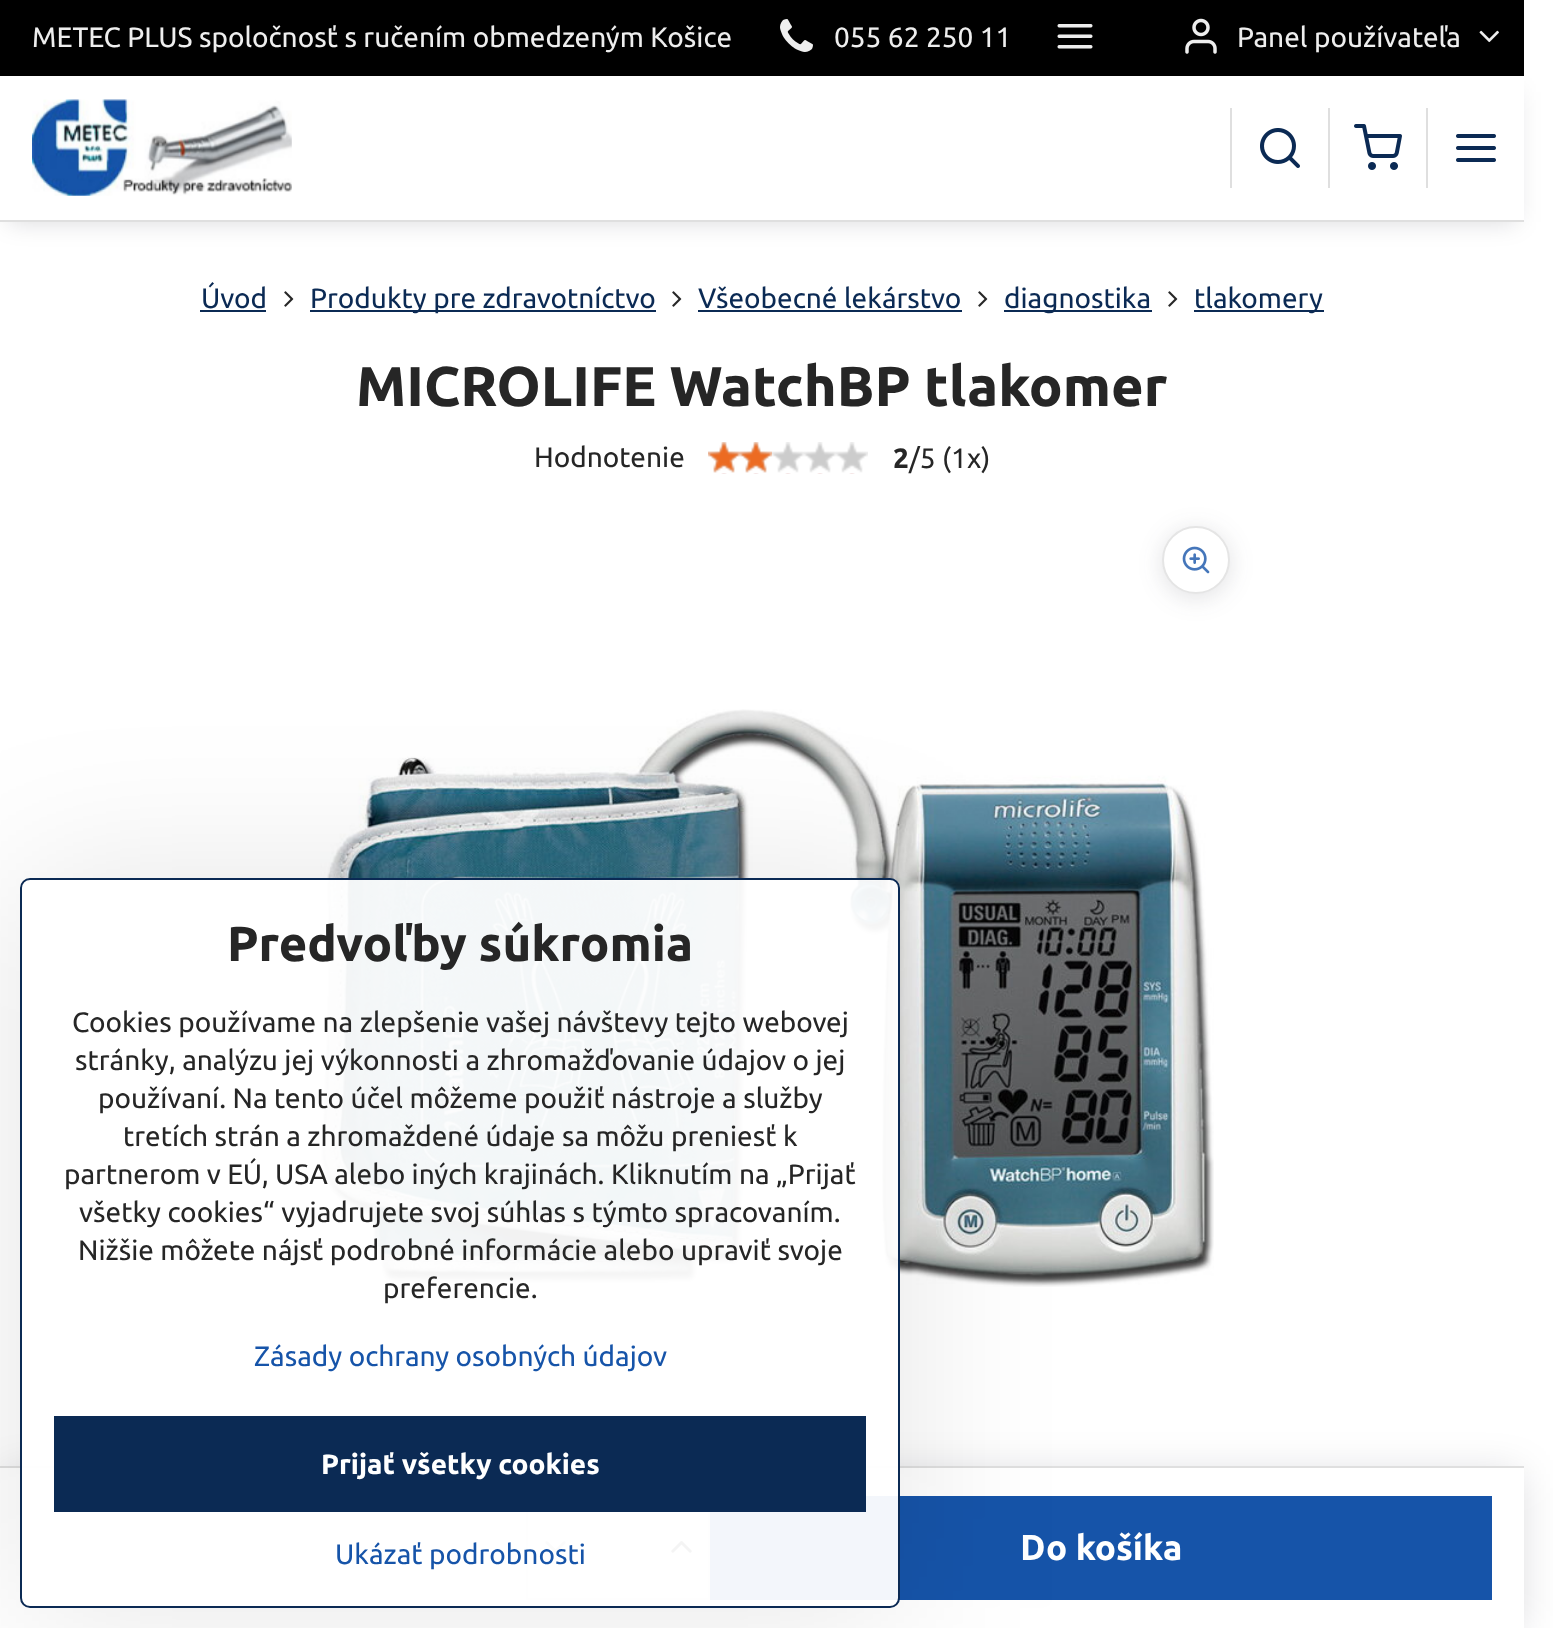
async function draw(canvas) {
  canvas.width = 1553;
  canvas.height = 1628;
  const ctx = canvas.getContext('2d');
  ctx.miterLimit = 4;
  ctx.fontKerning = 'normal';
  function label(s, x, y, font, color) {
    ctx.font = font;
    ctx.fillStyle = color;
    ctx.fillText(s, x, y);
  }
  function rect(x, y, w, h, color) {
    ctx.fillStyle = color;
    ctx.fillRect(x, y, w, h);
  }
  async function image(src, x, y, w, h) {
    const img = new Image();
    img.src = src;
    await img.decode();
    ctx.drawImage(img, x, y, w, h);
  }
  let path;

  rect(0, 0, 1553, 1628, '#fff');
  rect(0, 0, 1524, 76, '#000');
  label('METEC PLUS spoločnosť s ručením obmedzeným Košice', 32, 47, '28px Ubuntu', '#eee');
  await image('assets/img1.png', 780, 19, 33, 33);
  label('055 62 250 11', 834, 47, '28px Ubuntu', '#eee');
  await image('assets/img2.png', 1057, 24, 36, 25);
  await image('assets/img3.png', 1185, 18, 32, 36);
  label('Panel používateľa', 1237, 47, '28px Ubuntu', '#eee');
  await image('assets/img4.png', 1479, 30, 20, 13);
  ctx.save();
  path = new Path2D('M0 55H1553V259H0ZM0 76H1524V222H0Z');
  ctx.clip(path, 'evenodd');
  ctx.fillStyle = '#00001426';
  ctx.filter = 'blur(12px)';
  ctx.beginPath();
  ctx.rect(8, 92, 1508, 130);
  ctx.fill();
  ctx.filter = 'none';
  ctx.restore();
  rect(0, 220, 1524, 2, '#dfdfdf');
  await image('assets/img5.png', 32, 99, 260, 97);
  rect(1230, 108, 2, 80, '#dfdfdf');
  await image('assets/img6.png', 1260, 128, 40, 40);
  rect(1328, 108, 2, 80, '#dfdfdf');
  await image('assets/img7.png', 1354, 124, 48, 46);
  rect(1426, 108, 2, 80, '#dfdfdf');
  await image('assets/img8.png', 1456, 134, 40, 28);
  label('Úvod', 201, 308, '28px Ubuntu', '#0b2a54');
  rect(200, 310, 66, 2, '#0b2a54');
  await image('assets/img9.png', 284, 291, 10, 16);
  rect(310, 310, 346, 2, '#0b2a54');
  label('Produkty pre zdravotníctvo', 310, 308, '28px Ubuntu', '#0b2a54');
  await image('assets/img9.png', 672, 291, 10, 16);
  label('Všeobecné lekárstvo', 698, 308, '28px Ubuntu', '#0b2a54');
  rect(698, 310, 264, 2, '#0b2a54');
  await image('assets/img9.png', 978, 291, 10, 16);
  rect(1004, 310, 148, 2, '#0b2a54');
  label('diagnostika', 1004, 308, '28px Ubuntu', '#0b2a54');
  await image('assets/img9.png', 1168, 291, 10, 16);
  rect(1194, 310, 130, 2, '#0b2a54');
  label('tlakomery', 1194, 308, '28px Ubuntu', '#0b2a54');
  label('MICROLIFE WatchBP tlakomer', 356, 406, 'bold 56px Ubuntu', '#262626');
  label('Hodnotenie', 534, 467, '28px Ubuntu', '#262626');
  await image('assets/img10.png', 708, 442, 160, 32);
  await image('assets/img11.png', 708, 442, 64, 31);
  label('2', 893, 468, 'bold 28px Ubuntu', '#262626');
  label('/5 (1x)', 909, 468, '28px Ubuntu', '#262626');
  ctx.fillStyle = '#00001426';
  ctx.filter = 'blur(21px)';
  ctx.beginPath();
  ctx.rect(4, 1474, 1516, 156);
  ctx.fill();
  ctx.filter = 'none';
  rect(0, 1468, 1524, 160, '#fff');
  rect(0, 1466, 1524, 2, '#dfdfdf');
  ctx.strokeStyle = '#dfdfdf';
  ctx.lineWidth = 2;
  ctx.strokeRect(527, 1497, 182, 102);
  await image('assets/img12.png', 545, 1541, 21, 12);
  await image('assets/img13.png', 671, 1541, 21, 12);
  rect(710, 1496, 782, 104, '#1654a9');
  label('D', 1020, 1560, 'bold 35px Noto Sans', '#fff');
  label('o košíka', 1046, 1560, 'bold 35px Ubuntu', '#fff');
  ctx.fillStyle = '#33334326';
  ctx.filter = 'blur(12px)';
  ctx.beginPath();
  ctx.roundRect(1162, 530, 68, 68, 34);
  ctx.fill();
  ctx.filter = 'none';
  ctx.fillStyle = '#fff';
  ctx.beginPath();
  ctx.arc(1196, 560, 33, 0, 2 * Math.PI);
  ctx.fill();
  ctx.strokeStyle = '#e5e5e5';
  ctx.stroke();
  await image('assets/img14.png', 1182, 546, 28, 28);
  await image('assets/img15.png', 319, 709, 895, 578);
  ctx.save();
  path = new Path2D('M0 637H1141V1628H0ZM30 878H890C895.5 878 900 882.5 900 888V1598C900 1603.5 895.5 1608 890 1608H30C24.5 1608 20 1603.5 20 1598V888C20 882.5 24.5 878 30 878Z');
  ctx.clip(path, 'evenodd');
  ctx.fillStyle = '#0000001a';
  ctx.filter = 'blur(80px)';
  ctx.beginPath();
  ctx.roundRect(20, 878, 880, 730, 10);
  ctx.fill();
  ctx.filter = 'none';
  ctx.restore();
  ctx.fillStyle = '#fffffff2';
  ctx.beginPath();
  ctx.roundRect(21, 879, 878, 728, 9);
  ctx.fill();
  ctx.strokeStyle = '#0b2a54';
  ctx.stroke();
  label('Predvoľby súkromia', 227, 961, 'bold 49px Ubuntu', '#262626');
  label('Cookies používame na zlepšenie vašej návštevy tejto webovej', 72, 1032, '28px Ubuntu', '#262626');
  label('stránky, analýzu jej výkonnosti a zhromažďovanie údajov o jej', 75, 1070, '28px Ubuntu', '#262626');
  label('používaní. Na tento účel môžeme použiť nástroje a služby', 98, 1108, '28px Ubuntu', '#262626');
  label('tretích strán a zhromaždené údaje sa môžu preniesť k', 123, 1146, '28px Ubuntu', '#262626');
  label('partnerom v EÚ, USA alebo iných krajinách. Kliknutím na „Prijať', 64, 1184, '28px Ubuntu', '#262626');
  label('všetky cookies“ vyjadrujete svoj súhlas s týmto spracovaním.', 79, 1222, '28px Ubuntu', '#262626');
  label('Nižšie môžete nájsť podrobné informácie alebo upraviť svoje', 78, 1260, '28px Ubuntu', '#262626');
  label('preferencie.', 383, 1298, '28px Ubuntu', '#262626');
  label('Zásady ochrany osobných údajov', 254, 1366, '28px Ubuntu', '#1654a9');
  rect(54, 1416, 812, 96, '#0b2a54');
  label('Prijať všetky cookies', 321, 1474, 'bold 28px Ubuntu', '#fff');
  label('Ukázať podrobnosti', 335, 1564, '28px Ubuntu', '#1654a9');
}

draw(document.querySelector('canvas'));
